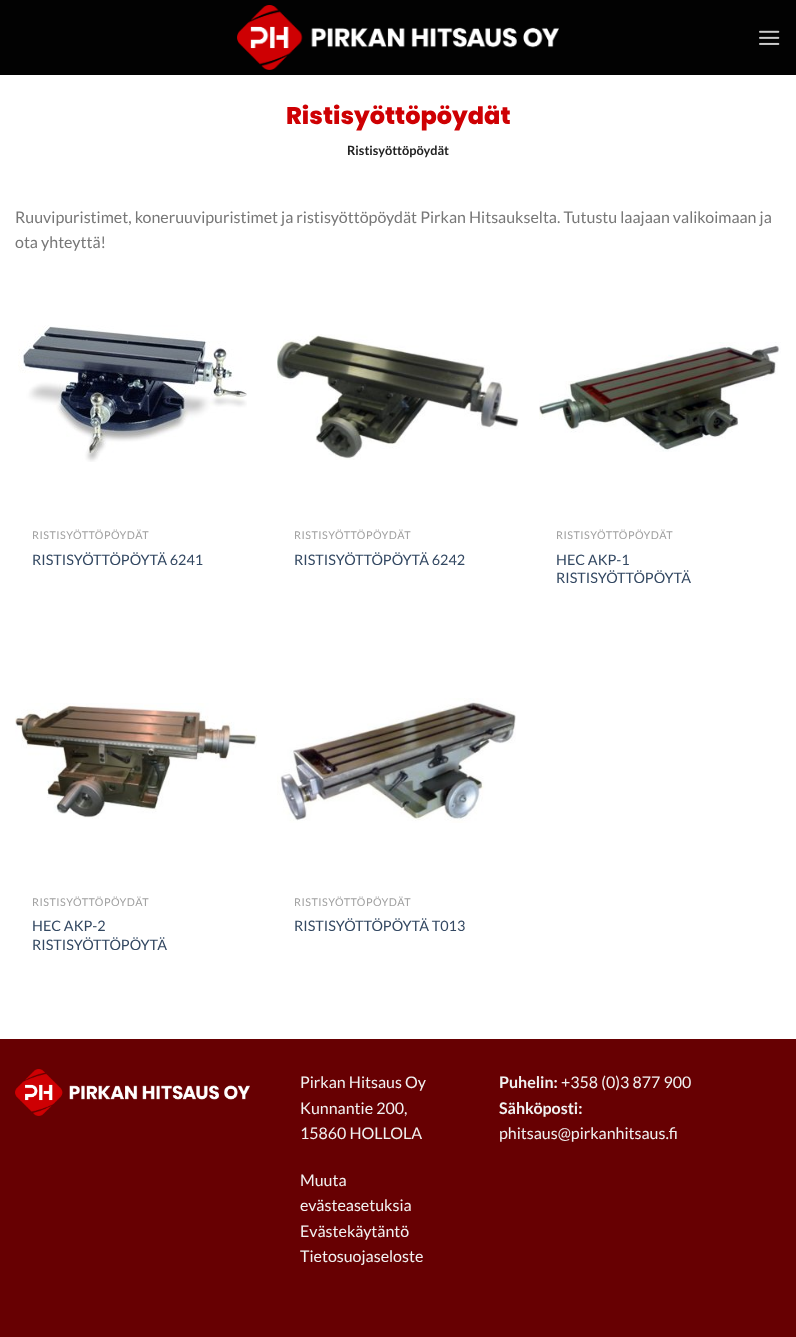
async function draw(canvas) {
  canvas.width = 796;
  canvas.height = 1337;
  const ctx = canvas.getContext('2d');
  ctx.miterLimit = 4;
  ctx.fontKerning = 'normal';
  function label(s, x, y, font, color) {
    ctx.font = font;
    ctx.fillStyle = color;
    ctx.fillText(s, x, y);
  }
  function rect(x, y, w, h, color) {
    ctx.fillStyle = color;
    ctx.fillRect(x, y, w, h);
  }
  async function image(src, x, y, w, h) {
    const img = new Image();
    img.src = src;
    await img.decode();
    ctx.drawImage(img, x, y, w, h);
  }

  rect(0, 0, 796, 1337, '#fff');
  rect(0, 0, 796, 75, '#020202');
  await image('assets/img1.png', 237, 5, 322, 65);
  await image('assets/img2.png', 759, 30, 21, 15);
  label('Ristisyöttöpöydät', 286, 124, '800 24px Poppins', '#ce0003');
  label('Ristisyöttöpöydät', 347, 155, 'bold 12.75px Lato', '#222');
  label('Ruuvipuristimet, koneruuvipuristimet ja ristisyöttöpöydät Pirkan Hitsaukselta. Tutustu laajaan valikoimaan ja', 15, 223, '16px Lato', '#777');
  label('ota yhteyttä!', 15, 248, '16px Lato', '#777');
  await image('assets/img3.png', 18, 325, 229, 137);
  ctx.letterSpacing = '0.5px';
  label('RISTISYÖTTÖPÖYDÄT', 32, 539, '10.75px Lato', '#a0a0a0');
  ctx.letterSpacing = '0px';
  label('RISTISYÖTTÖPÖYTÄ 6241', 32, 565, '14.4px Lato', '#334862');
  await image('assets/img4.png', 277, 334, 242, 126);
  ctx.letterSpacing = '0.5px';
  label('RISTISYÖTTÖPÖYDÄT', 294, 539, '10.75px Lato', '#a0a0a0');
  ctx.letterSpacing = '0px';
  label('RISTISYÖTTÖPÖYTÄ 6242', 294, 565, '14.4px Lato', '#334862');
  await image('assets/img5.png', 539, 342, 242, 110);
  ctx.letterSpacing = '0.5px';
  label('RISTISYÖTTÖPÖYDÄT', 556, 539, '10.75px Lato', '#a0a0a0');
  ctx.letterSpacing = '0px';
  label('HEC AKP-1', 556, 565, '14.4px Lato', '#334862');
  label('RISTISYÖTTÖPÖYTÄ', 556, 583, '14.4px Lato', '#334862');
  await image('assets/img6.png', 15, 703, 242, 116);
  ctx.letterSpacing = '0.5px';
  label('RISTISYÖTTÖPÖYDÄT', 32, 906, '10.75px Lato', '#a0a0a0');
  ctx.letterSpacing = '0px';
  label('HEC AKP-2', 32, 931, '14.4px Lato', '#334862');
  label('RISTISYÖTTÖPÖYTÄ', 32, 950, '14.4px Lato', '#334862');
  await image('assets/img7.png', 277, 698, 239, 125);
  ctx.letterSpacing = '0.5px';
  label('RISTISYÖTTÖPÖYDÄT', 294, 906, '10.75px Lato', '#a0a0a0');
  ctx.letterSpacing = '0px';
  label('RISTISYÖTTÖPÖYTÄ T013', 294, 931, '14.4px Lato', '#334862');
  rect(0, 1039, 796, 298, '#670002');
  await image('assets/img8.png', 15, 1069, 235, 47);
  label('Pirkan Hitsaus Oy', 300, 1088, '16px Lato', '#f1f1f1');
  label('Kunnantie 200,', 300, 1114, '16px Lato', '#f1f1f1');
  label('15860 HOLLOLA', 300, 1139, '16px Lato', '#f1f1f1');
  label('Muuta', 300, 1186, '16px Lato', '#f1f1f1');
  label('evästeasetuksia', 300, 1211, '16px Lato', '#f1f1f1');
  label('Evästekäytäntö', 300, 1237, '16px Lato', '#f1f1f1');
  label('Tietosuojaseloste', 300, 1262, '16px Lato', '#f1f1f1');
  label('Puhelin:', 499, 1088, 'bold 16px Lato', '#f1f1f1');
  label('+358 (0)3 877 900', 561, 1088, '16px Lato', '#f1f1f1');
  label('Sähköposti:', 499, 1114, 'bold 16px Lato', '#f1f1f1');
  label('phitsaus@pirkanhitsaus.fi', 499, 1139, '16px Lato', '#f1f1f1');
}

draw(document.querySelector('canvas'));
